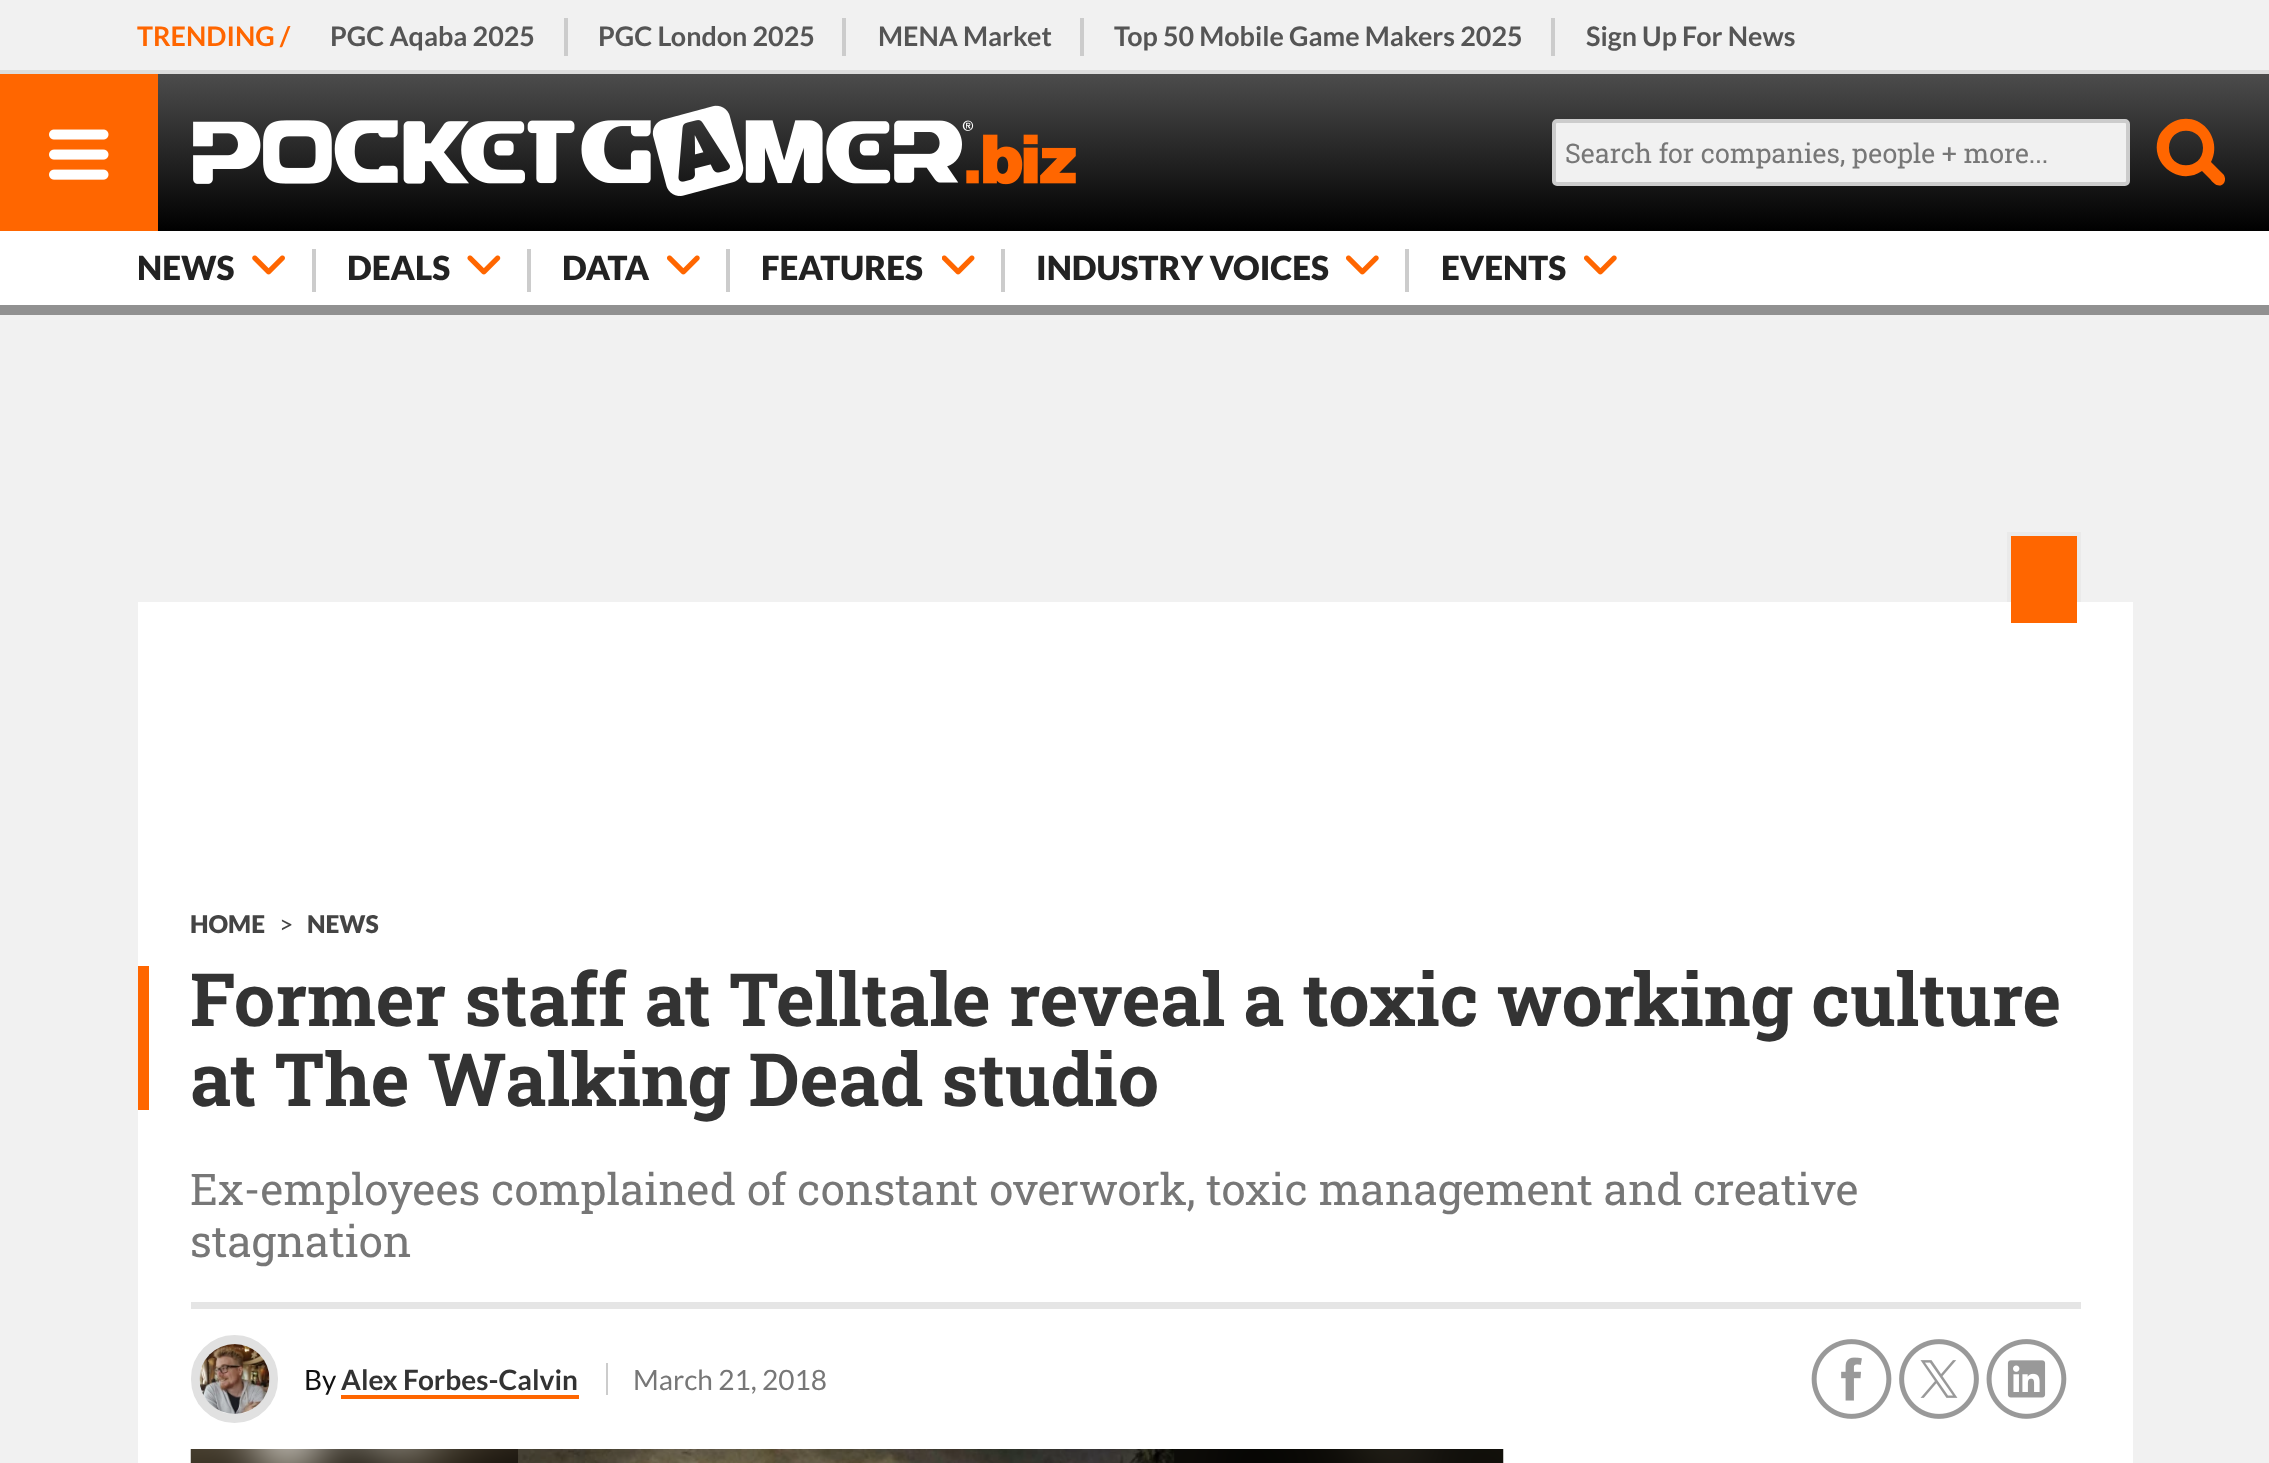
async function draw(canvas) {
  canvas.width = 2269;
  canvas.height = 1463;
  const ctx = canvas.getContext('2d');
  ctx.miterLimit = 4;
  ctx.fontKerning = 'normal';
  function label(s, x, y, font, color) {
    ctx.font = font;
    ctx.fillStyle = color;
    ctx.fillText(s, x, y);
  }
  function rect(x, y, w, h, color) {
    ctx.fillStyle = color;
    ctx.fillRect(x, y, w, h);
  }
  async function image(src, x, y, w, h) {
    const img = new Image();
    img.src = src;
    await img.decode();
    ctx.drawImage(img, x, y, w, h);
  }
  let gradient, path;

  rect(0, 0, 2269, 1463, '#f1f1f1');
  ctx.fillStyle = '#919191';
  path = new Path2D('M0 304V315H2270V11V304Z');
  ctx.fill(path);
  rect(0, 70, 2269, 4, '#ddd');
  label('TRENDING /', 137, 46, 'bold 26.9px Lato', '#f60');
  label('PGC Aqaba 2025', 330, 46, 'bold 26.9px Lato', '#555');
  rect(564, 18, 4, 38, '#ccc');
  label('PGC London 2025', 598, 46, 'bold 26.9px Lato', '#555');
  rect(842, 18, 4, 38, '#ccc');
  label('MENA Market', 878, 46, 'bold 26.9px Lato', '#555');
  rect(1080, 18, 4, 38, '#ccc');
  label('Top 50 Mobile Game Makers 2025', 1114, 46, 'bold 26.9px Lato', '#555');
  rect(1551, 18, 4, 38, '#ccc');
  label('Sign Up For News', 1586, 46, 'bold 26.9px Lato', '#555');
  gradient = ctx.createLinearGradient(1135, 231, 1135, 74);
  gradient.addColorStop(0, '#000');
  gradient.addColorStop(1, '#4c4c4c');
  ctx.fillStyle = gradient;
  ctx.fillRect(158, 74, 2111, 157);
  rect(0, 74, 158, 157, '#f60');
  await image('assets/img1.png', 49, 129, 60, 51);
  await image('assets/img2.png', 193, 105, 883, 91);
  ctx.fillStyle = '#f1f1f1';
  ctx.beginPath();
  ctx.roundRect(1554, 121, 574, 63, 3);
  ctx.fill();
  ctx.strokeStyle = '#ccc';
  ctx.lineWidth = 4;
  ctx.stroke();
  label('Search for companies, people + more...', 1565, 163, '26.9px Roboto Slab', '#777');
  ctx.fillStyle = '#f60';
  path = new Path2D('M2169 148C2169 125 2203 125 2203 148C2203 171 2169 171 2169 148M2223 174L2211 162C2219 147 2212 128 2197 121C2190 118 2182 118 2175 121C2168 124 2162 130 2159 136C2148 163 2179 187 2202 171L2210 179C2213 183 2219 189 2224 183C2226 180 2225 176 2223 174');
  ctx.fill(path);
  rect(0, 231, 2269, 74, '#fff');
  label('NEWS', 137, 280, '900 33.25px Lato', '#222');
  await image('assets/img3.png', 252, 255, 33, 20);
  rect(312, 249, 4, 43, '#ccc');
  label('DEALS', 347, 280, '900 33.25px Lato', '#222');
  await image('assets/img4.png', 467, 255, 34, 20);
  rect(527, 249, 4, 43, '#ccc');
  label('DATA', 562, 280, '900 33.25px Lato', '#222');
  await image('assets/img5.png', 667, 255, 33, 20);
  rect(726, 249, 4, 43, '#ccc');
  label('FEATURES', 761, 280, '900 33.25px Lato', '#222');
  await image('assets/img6.png', 942, 255, 33, 20);
  rect(1001, 249, 4, 43, '#ccc');
  label('INDUSTRY VOICES', 1036, 280, '900 33.25px Lato', '#222');
  await image('assets/img5.png', 1346, 255, 33, 20);
  rect(1405, 249, 4, 43, '#ccc');
  label('EVENTS', 1441, 280, '900 33.25px Lato', '#222');
  await image('assets/img5.png', 1584, 255, 33, 20);
  rect(138, 602, 1995, 861, '#fff');
  rect(2007, 532, 74, 70, '#eaeaea');
  rect(2011, 536, 66, 87, '#f60');
  label('HOME', 190, 933, '900 24.5px Lato', '#444');
  label('>', 279, 933, '24.5px Lato', '#444');
  label('NEWS', 307, 933, '900 24.5px Lato', '#444');
  rect(138, 966, 11, 144, '#f60');
  label('Former staff at Telltale reveal a toxic working culture', 190, 1026, 'bold 73.5px Roboto Slab', '#333');
  label('at The Walking Dead studio', 190, 1106, 'bold 73.5px Roboto Slab', '#333');
  label('Ex-employees complained of constant overwork, toxic management and creative', 190, 1205, '43.75px Roboto Slab', '#777');
  label('stagnation', 190, 1257, '43.75px Roboto Slab', '#777');
  rect(191, 1302, 1890, 7, '#e5e5e5');
  ctx.beginPath();
  ctx.roundRect(195.5, 1339.5, 78, 79, 39);
  ctx.strokeStyle = '#e1e1e1';
  ctx.lineWidth = 9;
  ctx.stroke();
  await image('assets/img7.png', 199, 1344, 71, 70);
  label('By', 304, 1390, '28px Lato', '#111');
  label('Alex Forbes-Calvin', 341, 1390, 'bold 28px Lato', '#333');
  rect(341, 1395, 238, 4, '#f60');
  rect(606, 1363, 2, 32, '#ccc');
  label('March 21, 2018', 633, 1390, '28px Lato', '#777');
  await image('assets/img8.png', 1811, 1339, 81, 80);
  await image('assets/img9.png', 1899, 1339, 80, 80);
  await image('assets/img10.png', 1986, 1339, 81, 80);
  await image('assets/img11.png', 190, 1449, 1314, 14);
  await image('assets/img12.png', 518, 1449, 657, 14);
}

draw(document.querySelector('canvas'));
